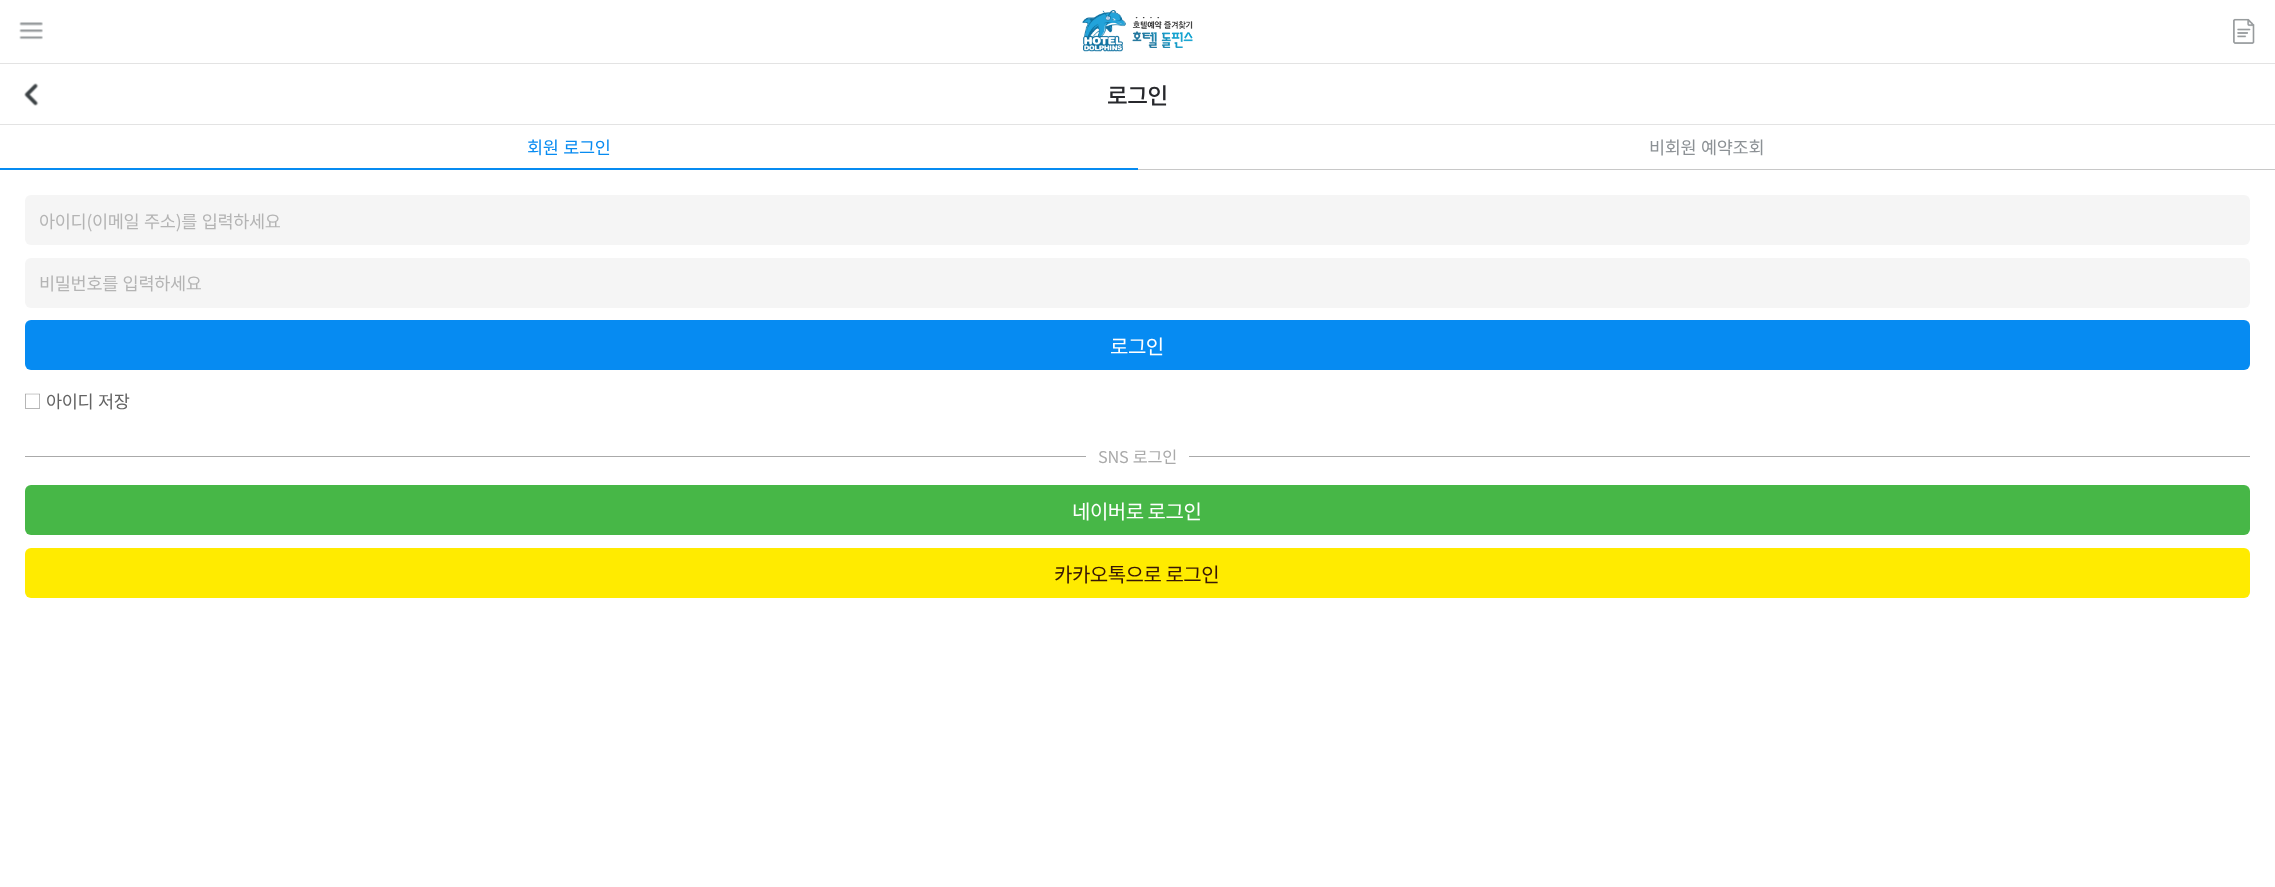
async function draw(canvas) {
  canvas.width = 2275;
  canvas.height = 887;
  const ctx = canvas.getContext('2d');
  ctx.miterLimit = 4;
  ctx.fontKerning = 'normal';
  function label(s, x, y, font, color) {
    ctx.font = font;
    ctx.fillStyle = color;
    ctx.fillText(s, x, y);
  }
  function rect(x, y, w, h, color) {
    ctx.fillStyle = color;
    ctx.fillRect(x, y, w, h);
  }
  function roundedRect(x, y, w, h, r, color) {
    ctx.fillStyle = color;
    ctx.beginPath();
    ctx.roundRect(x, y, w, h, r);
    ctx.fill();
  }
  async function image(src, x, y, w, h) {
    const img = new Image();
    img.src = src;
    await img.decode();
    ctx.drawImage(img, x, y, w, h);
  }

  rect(0, 0, 2275, 887, '#fff');
  await image('assets/img1.png', 19, 22, 24, 18);
  await image('assets/img2.png', 1082, 10, 111, 42);
  await image('assets/img3.png', 2233, 18, 22, 26);
  rect(0, 63, 2275, 1, '#e3e3e3');
  rect(0, 124, 2275, 1, '#e3e3e3');
  await image('assets/img4.png', 24, 83, 15, 23);
  ctx.letterSpacing = '-0.5px';
  label('로그인', 1107, 104, '500 22.5px Noto Sans KR', '#27282c');
  ctx.letterSpacing = '-0.3px';
  ctx.wordSpacing = '1px';
  label('회원 로그인', 527, 154, '17.5px Noto Sans KR', '#078bf1');
  rect(0, 168, 1138, 2, '#078bf1');
  rect(1138, 169, 1137, 1, '#c8c8c8');
  label('비회원 예약조회', 1649, 154, '17.5px Noto Sans KR', '#8c9195');
  roundedRect(25, 195, 2225, 50, 6, '#f5f5f5');
  label('아이디(이메일 주소)를 입력하세요', 39, 228, '17.5px Noto Sans KR', '#b4b4b4');
  roundedRect(25, 258, 2225, 50, 6, '#f5f5f5');
  label('비밀번호를 입력하세요', 39, 290, '17.5px Noto Sans KR', '#b4b4b4');
  roundedRect(25, 320, 2225, 50, 6, '#068bf2');
  ctx.letterSpacing = '-0.5px';
  ctx.wordSpacing = '0px';
  label('로그인', 1110, 354, '20px Noto Sans KR', '#fff');
  await image('assets/img5.png', 25, 393, 15, 16);
  ctx.letterSpacing = '-0.3px';
  ctx.wordSpacing = '1px';
  label('아이디 저장', 46, 408, '17.5px Noto Sans KR', '#636363');
  rect(25, 456, 2225, 1, '#aaa');
  rect(1086, 456, 103, 1, '#fff');
  ctx.letterSpacing = '-0.25px';
  label('SNS 로그인', 1098, 463, '16.25px Noto Sans KR', '#aaa');
  roundedRect(25, 485, 2225, 50, 6, '#47b747');
  ctx.letterSpacing = '-0.5px';
  ctx.wordSpacing = '0px';
  label('네이버로 로그인', 1072, 519, '20px Noto Sans KR', '#fff');
  roundedRect(25, 548, 2225, 50, 6, '#ffeb00');
  label('카카오톡으로 로그인', 1054, 582, '20px Noto Sans KR', '#371706');
}

draw(document.querySelector('canvas'));
